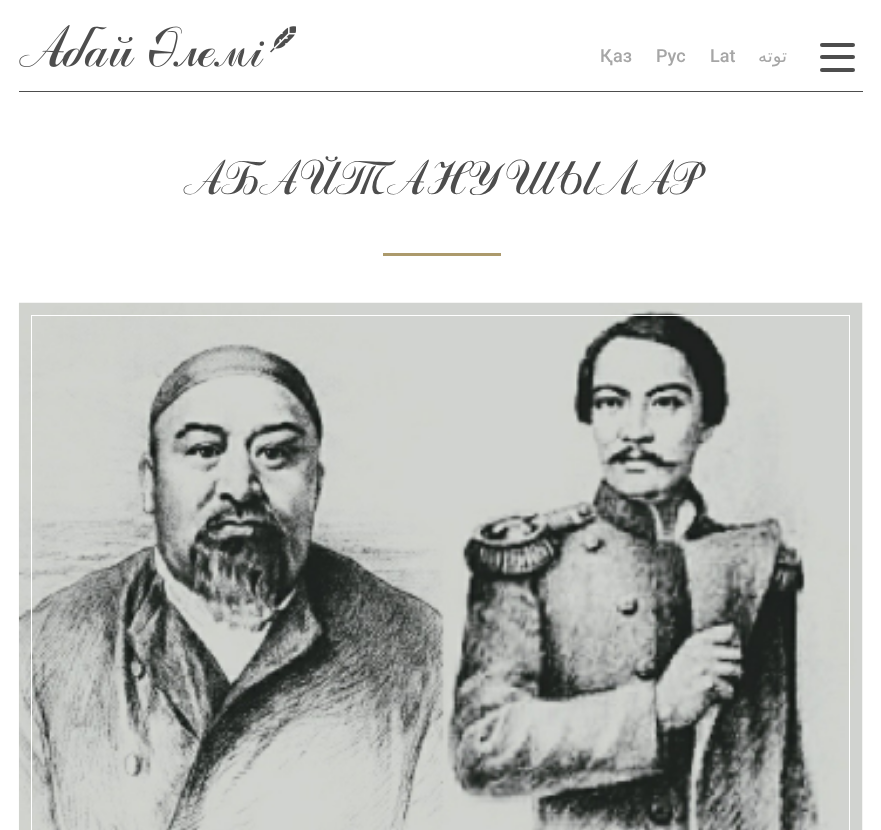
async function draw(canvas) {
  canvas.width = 881;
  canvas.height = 830;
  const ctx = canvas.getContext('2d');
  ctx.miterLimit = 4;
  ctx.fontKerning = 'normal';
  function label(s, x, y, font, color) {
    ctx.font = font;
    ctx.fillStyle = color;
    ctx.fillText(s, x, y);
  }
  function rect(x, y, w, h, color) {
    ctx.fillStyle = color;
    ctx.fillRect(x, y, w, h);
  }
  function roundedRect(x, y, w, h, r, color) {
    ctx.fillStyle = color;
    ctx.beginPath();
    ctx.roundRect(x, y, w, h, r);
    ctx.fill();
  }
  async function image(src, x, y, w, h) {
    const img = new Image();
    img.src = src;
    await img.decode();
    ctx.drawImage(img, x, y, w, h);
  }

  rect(0, 0, 881, 830, '#fff');
  rect(19, 91, 844, 1, '#4d4d4d');
  await image('assets/img1.png', 19, 25, 277, 42);
  label('Қаз', 600, 62, '500 18px Roboto', '#a6a6a6');
  label('Рус', 656, 62, '500 18px Roboto', '#a6a6a6');
  label('Lat', 710, 62, '500 18px Roboto', '#a6a6a6');
  ctx.direction = 'rtl';
  label('توتە', 787, 62, '18px DejaVu Sans', '#a6a6a6');
  roundedRect(820, 43, 35, 4, 2, '#4d4d4d');
  roundedRect(820, 55, 35, 4, 2, '#4d4d4d');
  roundedRect(820, 68, 35, 4, 2, '#4d4d4d');
  ctx.direction = 'ltr';
  label('АБАЙТАНУШЫЛАР', 183, 194, '50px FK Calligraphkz', '#4d4d4d');
  rect(383, 253, 118, 3, '#ac9a6c');
  await image('assets/img2.png', 18, 302, 845, 528);
  ctx.strokeStyle = '#fff';
  ctx.strokeRect(31.5, 315.5, 818, 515);
}

draw(document.querySelector('canvas'));
